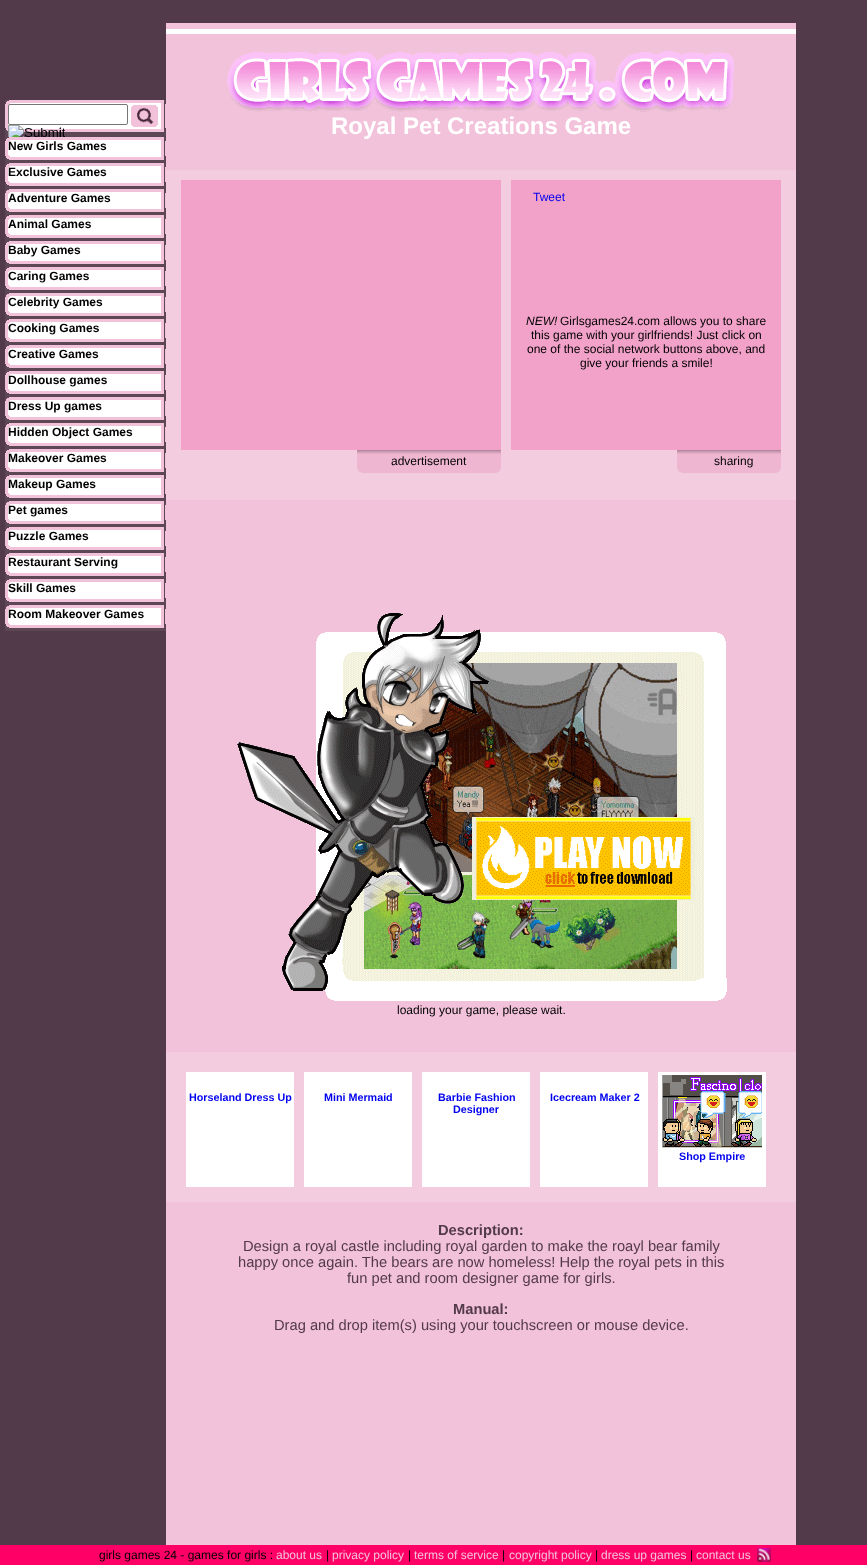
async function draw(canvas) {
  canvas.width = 867;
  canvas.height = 1565;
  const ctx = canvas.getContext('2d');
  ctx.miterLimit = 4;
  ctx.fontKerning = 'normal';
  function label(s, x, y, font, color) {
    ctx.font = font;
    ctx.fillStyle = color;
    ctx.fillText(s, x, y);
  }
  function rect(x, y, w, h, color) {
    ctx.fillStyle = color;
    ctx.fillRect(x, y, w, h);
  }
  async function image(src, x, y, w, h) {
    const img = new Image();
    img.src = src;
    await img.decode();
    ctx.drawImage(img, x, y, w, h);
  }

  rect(0, 0, 867, 1565, '#533a4a');
  await image('assets/img1.png', 5, 100, 161, 37);
  ctx.fillStyle = '#fff';
  ctx.beginPath();
  ctx.roundRect(8.5, 104.5, 119, 20, 1.5);
  ctx.fill();
  ctx.strokeStyle = '#767676';
  ctx.stroke();
  await image('assets/img2.png', 8, 125, 57, 12);
  label('i', 59, 137, '13px Liberation Sans', '#000');
  await image('assets/img3.png', 5, 137, 161, 26);
  label('New Girls Games', 8, 150, 'bold 12px Liberation Sans', '#000');
  await image('assets/img3.png', 5, 163, 161, 26);
  label('Exclusive Games', 8, 176, 'bold 12px Liberation Sans', '#000');
  await image('assets/img3.png', 5, 189, 161, 26);
  label('Adventure Games', 8, 202, 'bold 12px Liberation Sans', '#000');
  await image('assets/img3.png', 5, 215, 161, 26);
  label('Animal Games', 8, 228, 'bold 12px Liberation Sans', '#000');
  await image('assets/img3.png', 5, 241, 161, 26);
  label('Baby Games', 8, 254, 'bold 12px Liberation Sans', '#000');
  await image('assets/img3.png', 5, 267, 161, 26);
  label('Caring Games', 8, 280, 'bold 12px Liberation Sans', '#000');
  await image('assets/img3.png', 5, 293, 161, 26);
  label('Celebrity Games', 8, 306, 'bold 12px Liberation Sans', '#000');
  await image('assets/img3.png', 5, 319, 161, 26);
  label('Cooking Games', 8, 332, 'bold 12px Liberation Sans', '#000');
  await image('assets/img3.png', 5, 345, 161, 26);
  label('Creative Games', 8, 358, 'bold 12px Liberation Sans', '#000');
  await image('assets/img3.png', 5, 371, 161, 26);
  label('Dollhouse games', 8, 384, 'bold 12px Liberation Sans', '#000');
  await image('assets/img3.png', 5, 397, 161, 26);
  label('Dress Up games', 8, 410, 'bold 12px Liberation Sans', '#000');
  await image('assets/img3.png', 5, 423, 161, 26);
  label('Hidden Object Games', 8, 436, 'bold 12px Liberation Sans', '#000');
  await image('assets/img3.png', 5, 449, 161, 26);
  label('Makeover Games', 8, 462, 'bold 12px Liberation Sans', '#000');
  await image('assets/img3.png', 5, 475, 161, 26);
  label('Makeup Games', 8, 488, 'bold 12px Liberation Sans', '#000');
  await image('assets/img3.png', 5, 501, 161, 26);
  label('Pet games', 8, 514, 'bold 12px Liberation Sans', '#000');
  await image('assets/img3.png', 5, 527, 161, 26);
  label('Puzzle Games', 8, 540, 'bold 12px Liberation Sans', '#000');
  await image('assets/img3.png', 5, 553, 161, 26);
  label('Restaurant Serving', 8, 566, 'bold 12px Liberation Sans', '#000');
  await image('assets/img3.png', 5, 579, 161, 26);
  label('Skill Games', 8, 592, 'bold 12px Liberation Sans', '#000');
  await image('assets/img3.png', 5, 605, 161, 26);
  label('Room Makeover Games', 8, 618, 'bold 12px Liberation Sans', '#000');
  rect(166, 112, 630, 1433, '#f2c2da');
  await image('assets/img4.png', 166, 0, 630, 112);
  await image('assets/img5.png', 227, 51, 507, 61);
  label('Royal Pet Creations Game', 331, 134, 'bold 24px Liberation Sans', '#fff');
  rect(166, 170, 630, 330, '#f3ccdf');
  rect(181, 180, 320, 270, '#f2a1c9');
  await image('assets/img6.png', 357, 450, 144, 23);
  label('advertisement', 391, 465, '12px Liberation Sans', '#000');
  rect(511, 180, 270, 270, '#f2a1c9');
  label('Tweet', 533, 201, '12px Liberation Sans', '#00e');
  label('NEW!', 526, 325, 'italic 12px Liberation Sans', '#000');
  label('Girlsgames24.com allows you to share', 560, 325, '12px Liberation Sans', '#000');
  label('this game with your girlfriends! Just click on', 531, 339, '12px Liberation Sans', '#000');
  label('one of the social network buttons above, and', 527, 353, '12px Liberation Sans', '#000');
  label('give your friends a smile!', 580, 367, '12px Liberation Sans', '#000');
  await image('assets/img7.png', 677, 450, 104, 23);
  label('sharing', 714, 465, '12px Liberation Sans', '#000');
  await image('assets/img8.png', 237, 613, 490, 388);
  label('loading your game, please wait.', 397, 1014, '12px Liberation Sans', '#000');
  rect(166, 1052, 630, 150, '#f3ccdf');
  rect(186, 1072, 108, 115, '#fff');
  label('Horseland Dress Up', 189, 1101, 'bold 10.75px Liberation Sans', '#00e');
  rect(304, 1072, 108, 115, '#fff');
  label('Mini Mermaid', 324, 1101, 'bold 10.75px Liberation Sans', '#00e');
  rect(422, 1072, 108, 115, '#fff');
  label('Barbie Fashion', 438, 1101, 'bold 10.75px Liberation Sans', '#00e');
  label('Designer', 453, 1113, 'bold 10.75px Liberation Sans', '#00e');
  rect(540, 1072, 108, 115, '#fff');
  label('Icecream Maker 2', 550, 1101, 'bold 10.75px Liberation Sans', '#00e');
  rect(658, 1072, 108, 115, '#fff');
  await image('assets/img9.png', 662, 1075, 100, 73);
  label('Shop Empire', 679, 1160, 'bold 10.75px Liberation Sans', '#00e');
  label('Description:', 438, 1235, 'bold 14.7px Liberation Sans', '#533a4a');
  label('Design a royal castle including royal garden to make the roayl bear family', 243, 1251, '14.7px Liberation Sans', '#533a4a');
  label('happy once again. The bears are now homeless! Help the royal pets in this', 238, 1267, '14.7px Liberation Sans', '#533a4a');
  label('fun pet and room designer game for girls.', 347, 1283, '14.7px Liberation Sans', '#533a4a');
  label('Manual:', 453, 1314, 'bold 14.7px Liberation Sans', '#533a4a');
  label('Drag and drop item(s) using your touchscreen or mouse device.', 274, 1330, '14.7px Liberation Sans', '#533a4a');
  rect(0, 1545, 867, 20, '#f06');
  label('girls games 24 - games for girls :', 99, 1559, '12px Liberation Sans', '#000');
  label('about us', 276, 1559, '12px Liberation Sans', '#f2c2da');
  label('|', 326, 1559, '12px Liberation Sans', '#000');
  label('privacy policy', 332, 1559, '12px Liberation Sans', '#f2c2da');
  label('|', 408, 1559, '12px Liberation Sans', '#000');
  label('terms of service', 414, 1559, '12px Liberation Sans', '#f2c2da');
  label('|', 502, 1559, '12px Liberation Sans', '#000');
  label('copyright policy', 509, 1559, '12px Liberation Sans', '#f2c2da');
  label('|', 595, 1559, '12px Liberation Sans', '#000');
  label('dress up games', 601, 1559, '12px Liberation Sans', '#f2c2da');
  label('|', 690, 1559, '12px Liberation Sans', '#000');
  label('contact us', 696, 1559, '12px Liberation Sans', '#f2c2da');
  await image('assets/img10.png', 757, 1548, 14, 14);
}

draw(document.querySelector('canvas'));
